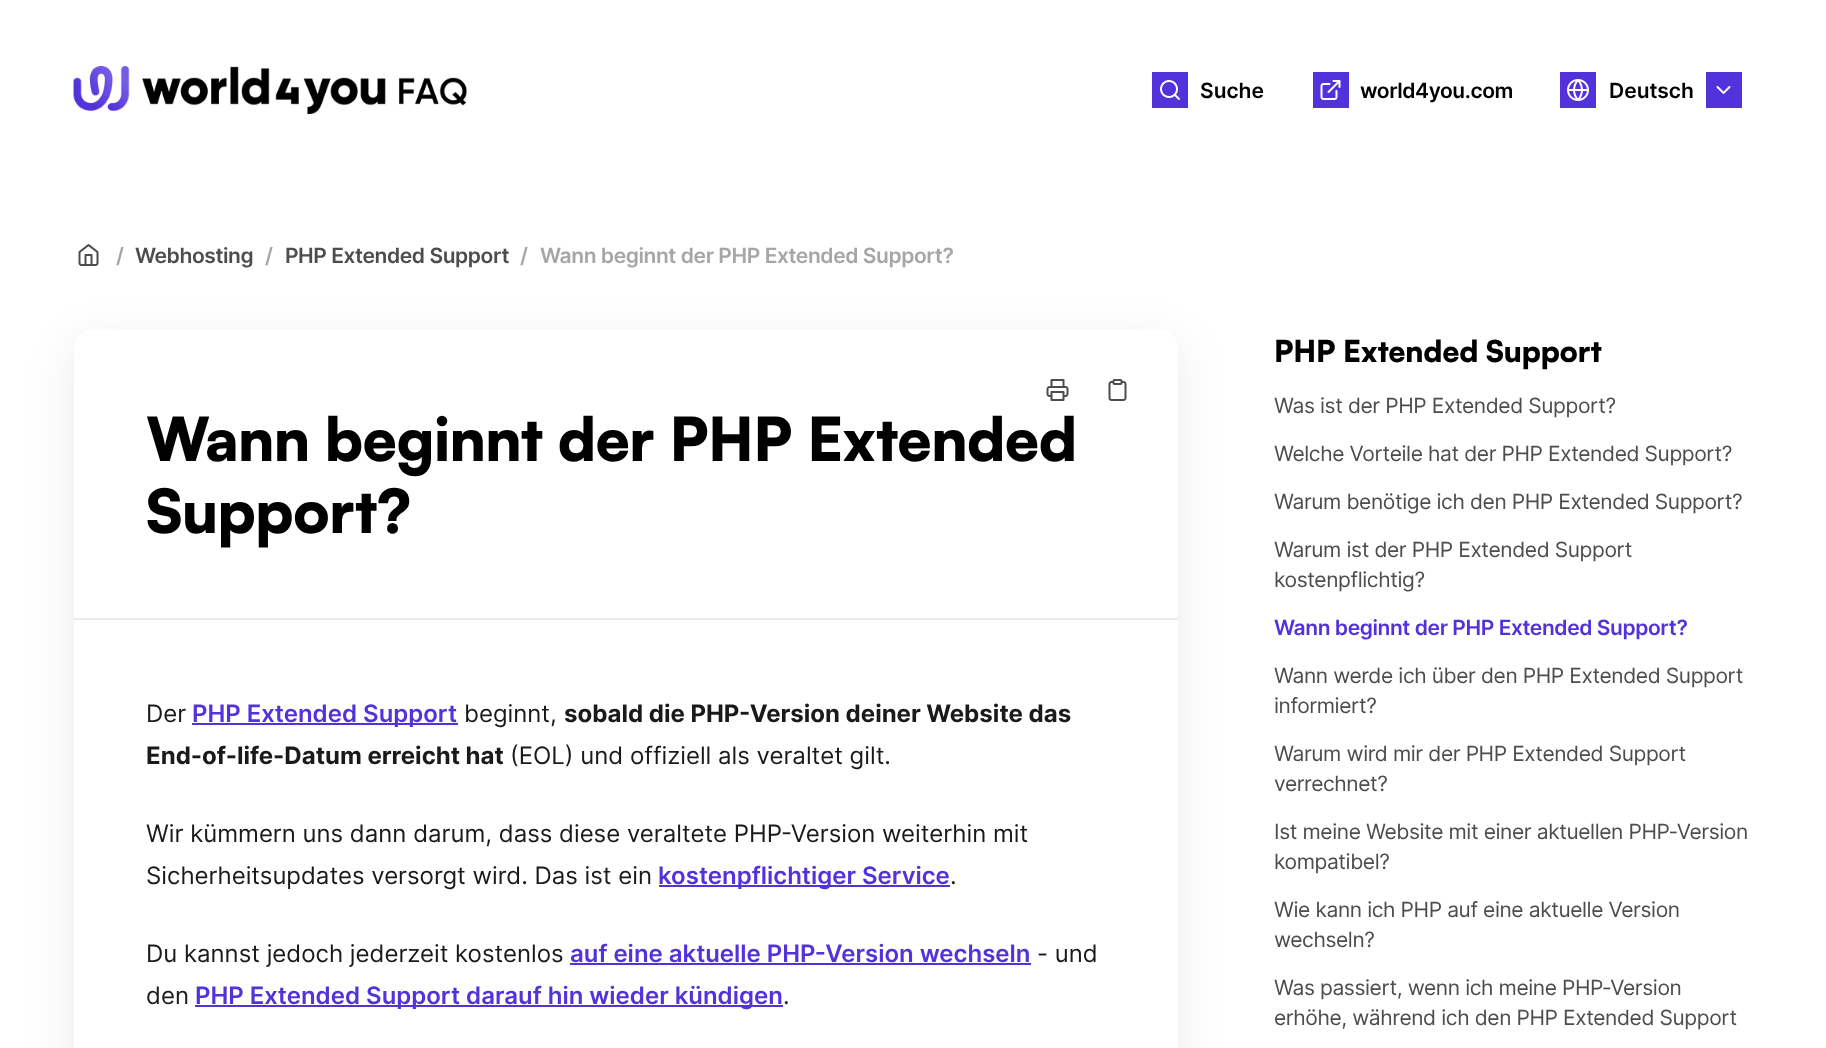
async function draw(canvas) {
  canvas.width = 1826;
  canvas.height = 1048;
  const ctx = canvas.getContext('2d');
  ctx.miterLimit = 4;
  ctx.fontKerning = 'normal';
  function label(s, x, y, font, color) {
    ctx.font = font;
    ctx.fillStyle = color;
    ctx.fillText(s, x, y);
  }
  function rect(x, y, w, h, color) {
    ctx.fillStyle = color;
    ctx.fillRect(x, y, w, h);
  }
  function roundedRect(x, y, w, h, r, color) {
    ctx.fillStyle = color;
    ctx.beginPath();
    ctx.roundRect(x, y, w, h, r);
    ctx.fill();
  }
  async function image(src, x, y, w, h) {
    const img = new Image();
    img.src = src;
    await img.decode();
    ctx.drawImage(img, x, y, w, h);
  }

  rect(0, 0, 1826, 1048, '#fff');
  await image('assets/img1.png', 73, 66, 394, 48);
  rect(1152, 72, 36, 36, '#5232db');
  await image('assets/img2.png', 1160, 80, 20, 20);
  label('Suche', 1200, 98, '600 21px Inter', '#000');
  rect(1313, 72, 36, 36, '#5232db');
  await image('assets/img3.png', 1320, 80, 21, 20);
  ctx.letterSpacing = '-0.4px';
  label('world4you.com', 1360, 98, '600 21px Inter', '#000');
  rect(1560, 72, 36, 36, '#5232db');
  await image('assets/img4.png', 1567, 79, 22, 22);
  ctx.letterSpacing = '0px';
  label('Deutsch', 1609, 98, '600 21px Inter', '#000');
  rect(1706, 72, 36, 36, '#5232db');
  await image('assets/img5.png', 1716, 86, 15, 8);
  await image('assets/img6.png', 78, 244, 21, 22);
  ctx.letterSpacing = '-0.4px';
  label('/', 116, 263, '600 21px Inter', '#a6a6a6');
  label('Webhosting', 135, 263, '600 21px Inter', '#4d4d4d');
  label('/', 265, 263, '600 21px Inter', '#a6a6a6');
  label('PHP Extended Support', 285, 263, '600 21px Inter', '#4d4d4d');
  label('/', 520, 263, '600 21px Inter', '#a6a6a6');
  label('Wann beginnt der PHP Extended Support?', 540, 263, '600 21px Inter', '#a6a6a6');
  ctx.fillStyle = '#00000014';
  ctx.filter = 'blur(24px)';
  ctx.beginPath();
  ctx.roundRect(74, 342, 1104, 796, 18);
  ctx.fill();
  ctx.filter = 'none';
  roundedRect(74, 330, 1104, 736, 18, '#fff');
  await image('assets/img7.png', 1046, 379, 23, 22);
  await image('assets/img8.png', 1108, 379, 19, 22);
  ctx.letterSpacing = '-0.6px';
  label('Wann beginnt der PHP Extended', 146, 461, '900 60px Satoshi', '#000');
  label('Support?', 146, 533, '900 60px Satoshi', '#000');
  rect(74, 618, 1104, 2, '#ebebeb');
  ctx.letterSpacing = '0px';
  label('Der', 146, 722, '24px Inter', '#1a1a1a');
  rect(192, 723, 266, 2, '#5232db');
  label('PHP Extended Support', 192, 722, '600 24px Inter', '#5232db');
  label('beginnt,', 464, 722, '24px Inter', '#1a1a1a');
  label('sobald die PHP-Version deiner Website das', 564, 722, 'bold 24px Inter', '#1a1a1a');
  label('End-of-life-Datum erreicht hat', 146, 764, 'bold 24px Inter', '#1a1a1a');
  label('(EOL) und offiziell als veraltet gilt.', 510, 764, '24px Inter', '#1a1a1a');
  label('Wir kümmern uns dann darum, dass diese veraltete PHP-Version weiterhin mit', 146, 842, '24px Inter', '#1a1a1a');
  label('Sicherheitsupdates versorgt wird. Das ist ein', 146, 884, '24px Inter', '#1a1a1a');
  rect(659, 885, 291, 2, '#5232db');
  label('kostenpflichtiger Service', 658, 884, '600 24px Inter', '#5232db');
  label('.', 950, 884, '24px Inter', '#1a1a1a');
  label('Du kannst jedoch jederzeit kostenlos', 146, 962, '24px Inter', '#1a1a1a');
  label('auf eine aktuelle PHP-Version wechseln', 570, 962, '600 24px Inter', '#5232db');
  rect(570, 963, 461, 2, '#5232db');
  label('- und', 1037, 962, '24px Inter', '#1a1a1a');
  label('den', 146, 1004, '24px Inter', '#1a1a1a');
  rect(195, 1005, 588, 2, '#5232db');
  label('PHP Extended Support darauf hin wieder kündigen', 195, 1004, '600 24px Inter', '#5232db');
  label('.', 783, 1004, '24px Inter', '#1a1a1a');
  ctx.letterSpacing = '-0.25px';
  label('PHP Extended Support', 1274, 362, '900 30px Satoshi', '#000');
  ctx.letterSpacing = '-0.4px';
  label('Was ist der PHP Extended Support?', 1274, 413, '21px Inter', '#4d4d4d');
  label('Welche Vorteile hat der PHP Extended Support?', 1274, 461, '21px Inter', '#4d4d4d');
  label('Warum benötige ich den PHP Extended Support?', 1274, 509, '21px Inter', '#4d4d4d');
  label('Warum ist der PHP Extended Support', 1274, 557, '21px Inter', '#4d4d4d');
  label('kostenpflichtig?', 1274, 587, '21px Inter', '#4d4d4d');
  label('Wann beginnt der PHP Extended Support?', 1274, 635, '600 21px Inter', '#5232db');
  label('Wann werde ich über den PHP Extended Support', 1274, 683, '21px Inter', '#4d4d4d');
  label('informiert?', 1274, 713, '21px Inter', '#4d4d4d');
  label('Warum wird mir der PHP Extended Support', 1274, 761, '21px Inter', '#4d4d4d');
  label('verrechnet?', 1274, 791, '21px Inter', '#4d4d4d');
  label('Ist meine Website mit einer aktuellen PHP-Version', 1274, 839, '21px Inter', '#4d4d4d');
  label('kompatibel?', 1274, 869, '21px Inter', '#4d4d4d');
  label('Wie kann ich PHP auf eine aktuelle Version', 1274, 917, '21px Inter', '#4d4d4d');
  label('wechseln?', 1274, 947, '21px Inter', '#4d4d4d');
  label('Was passiert, wenn ich meine PHP-Version', 1274, 995, '21px Inter', '#4d4d4d');
  label('erhöhe, während ich den PHP Extended Support', 1274, 1025, '21px Inter', '#4d4d4d');
}

draw(document.querySelector('canvas'));
